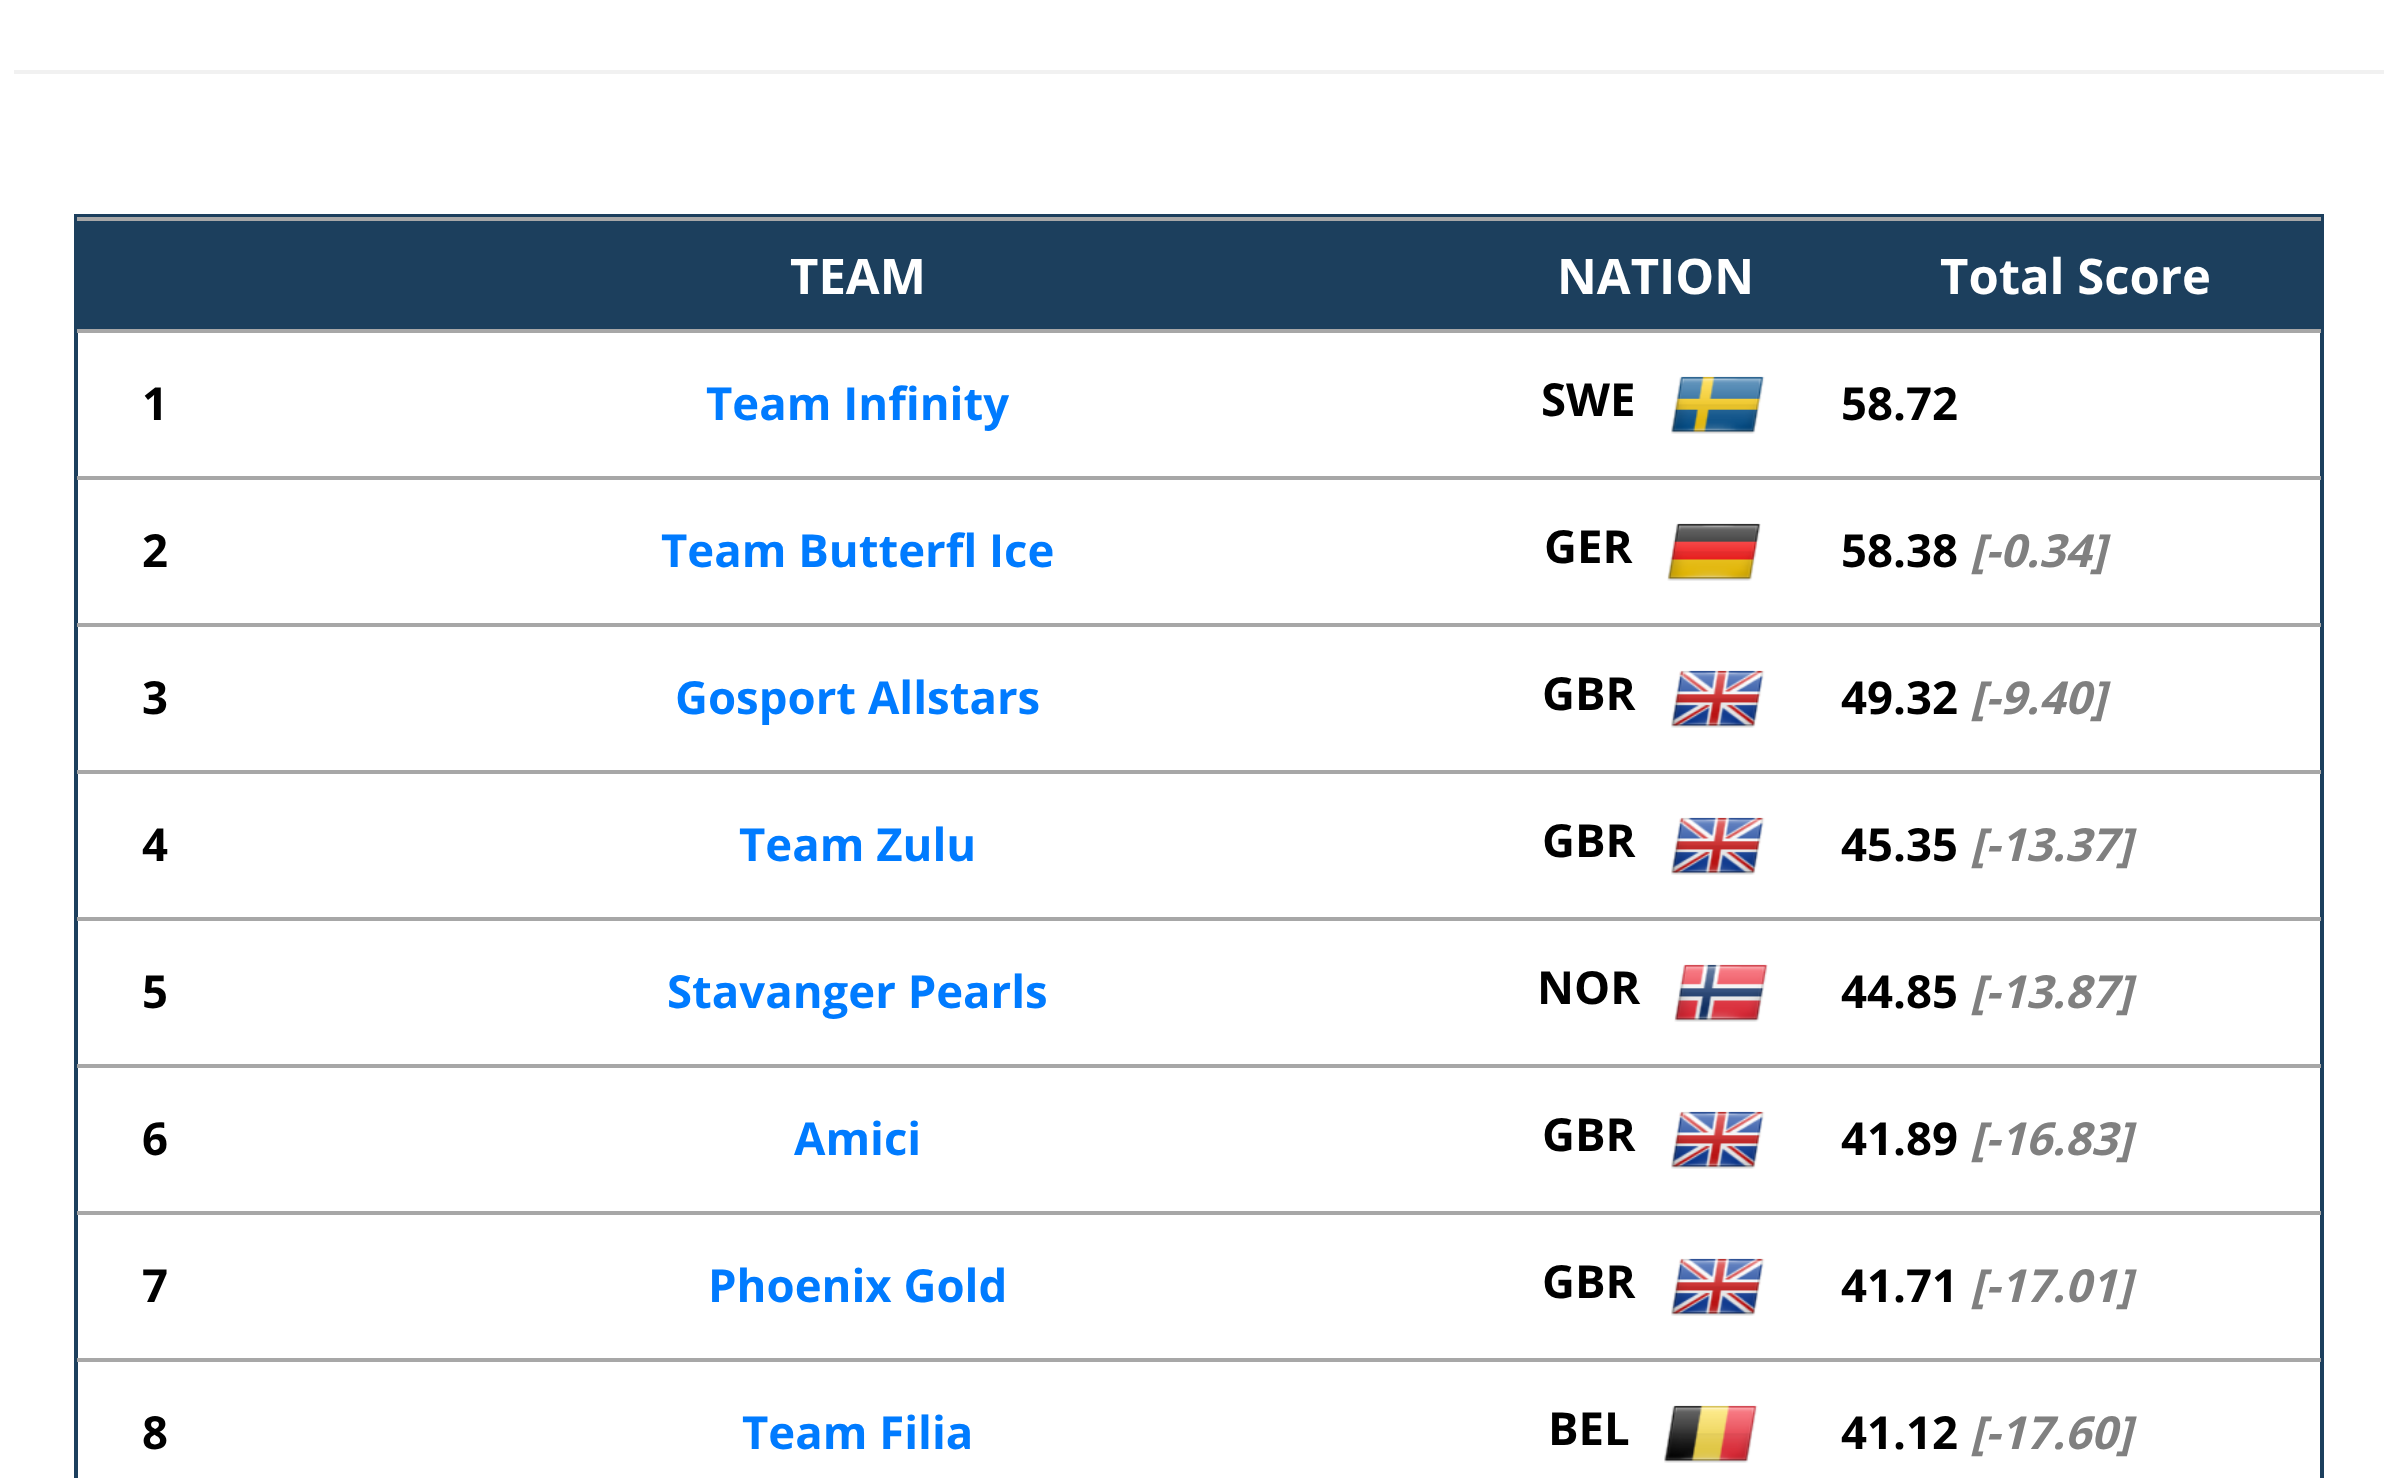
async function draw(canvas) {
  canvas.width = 2397;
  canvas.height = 1478;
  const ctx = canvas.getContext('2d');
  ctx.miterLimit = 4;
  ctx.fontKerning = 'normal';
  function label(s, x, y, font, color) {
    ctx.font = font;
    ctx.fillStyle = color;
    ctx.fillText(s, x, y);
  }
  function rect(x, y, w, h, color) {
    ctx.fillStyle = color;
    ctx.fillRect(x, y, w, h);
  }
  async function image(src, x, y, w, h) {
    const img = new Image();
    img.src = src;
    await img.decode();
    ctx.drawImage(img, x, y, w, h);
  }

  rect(0, 0, 2397, 1478, '#fff');
  rect(14, 70, 2370, 4, '#f1f1f1');
  ctx.strokeStyle = '#1c3f5d';
  ctx.lineWidth = 4;
  ctx.strokeRect(76, 216, 2246, 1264);
  rect(78, 221, 2242, 108, '#1c3f5d');
  rect(77, 217, 2244, 4, '#a7a7a7');
  label('TEAM', 790, 294, 'bold 49px Open Sans', '#fff');
  label('NATION', 1557, 294, 'bold 49px Open Sans', '#fff');
  label('Total Score', 1940, 294, 'bold 49px Open Sans', '#fff');
  rect(77, 329, 2244, 4, '#a7a7a7');
  label('1', 142, 420, 'bold 45.5px Open Sans', '#000');
  label('Team Infinity', 706, 420, 'bold 45.5px Open Sans', '#007bff');
  label('SWE', 1541, 416, 'bold 45.5px Open Sans', '#000');
  await image('assets/img1.png', 1671, 376, 94, 58);
  label('58.72', 1841, 420, 'bold 45.5px Open Sans', '#000');
  rect(77, 476, 2244, 4, '#a7a7a7');
  label('2', 142, 567, 'bold 45.5px Open Sans', '#000');
  label('Team Butterfl Ice', 661, 567, 'bold 45.5px Open Sans', '#007bff');
  label('GER', 1544, 563, 'bold 45.5px Open Sans', '#000');
  await image('assets/img2.png', 1667, 523, 94, 58);
  label('58.38', 1841, 567, 'bold 45.5px Open Sans', '#000');
  label('[-0.34]', 1970, 567, 'italic bold 45.5px Open Sans', '#808080');
  rect(77, 623, 2244, 4, '#a7a7a7');
  label('3', 142, 714, 'bold 45.5px Open Sans', '#000');
  label('Gosport Allstars', 675, 714, 'bold 45.5px Open Sans', '#007bff');
  label('GBR', 1542, 710, 'bold 45.5px Open Sans', '#000');
  await image('assets/img3.png', 1671, 670, 94, 58);
  label('49.32', 1841, 714, 'bold 45.5px Open Sans', '#000');
  label('[-9.40]', 1970, 714, 'italic bold 45.5px Open Sans', '#808080');
  rect(77, 770, 2244, 4, '#a7a7a7');
  label('4', 142, 861, 'bold 45.5px Open Sans', '#000');
  label('Team Zulu', 739, 861, 'bold 45.5px Open Sans', '#007bff');
  label('GBR', 1542, 857, 'bold 45.5px Open Sans', '#000');
  await image('assets/img3.png', 1671, 817, 94, 58);
  label('45.35', 1841, 861, 'bold 45.5px Open Sans', '#000');
  label('[-13.37]', 1970, 861, 'italic bold 45.5px Open Sans', '#808080');
  rect(77, 917, 2244, 4, '#a7a7a7');
  label('5', 142, 1008, 'bold 45.5px Open Sans', '#000');
  label('Stavanger Pearls', 667, 1008, 'bold 45.5px Open Sans', '#007bff');
  label('NOR', 1537, 1004, 'bold 45.5px Open Sans', '#000');
  await image('assets/img4.png', 1674, 964, 94, 58);
  label('44.85', 1841, 1008, 'bold 45.5px Open Sans', '#000');
  label('[-13.87]', 1970, 1008, 'italic bold 45.5px Open Sans', '#808080');
  rect(77, 1064, 2244, 4, '#a7a7a7');
  label('6', 142, 1155, 'bold 45.5px Open Sans', '#000');
  label('Amici', 794, 1155, 'bold 45.5px Open Sans', '#007bff');
  label('GBR', 1542, 1151, 'bold 45.5px Open Sans', '#000');
  await image('assets/img3.png', 1671, 1111, 94, 58);
  label('41.89', 1841, 1155, 'bold 45.5px Open Sans', '#000');
  label('[-16.83]', 1970, 1155, 'italic bold 45.5px Open Sans', '#808080');
  rect(77, 1211, 2244, 4, '#a7a7a7');
  label('7', 142, 1302, 'bold 45.5px Open Sans', '#000');
  label('Phoenix Gold', 708, 1302, 'bold 45.5px Open Sans', '#007bff');
  label('GBR', 1542, 1298, 'bold 45.5px Open Sans', '#000');
  await image('assets/img5.png', 1671, 1258, 94, 58);
  label('41.71', 1841, 1302, 'bold 45.5px Open Sans', '#000');
  label('[-17.01]', 1970, 1302, 'italic bold 45.5px Open Sans', '#808080');
  rect(77, 1358, 2244, 4, '#a7a7a7');
  label('8', 142, 1449, 'bold 45.5px Open Sans', '#000');
  label('Team Filia', 742, 1449, 'bold 45.5px Open Sans', '#007bff');
  label('BEL', 1548, 1445, 'bold 45.5px Open Sans', '#000');
  await image('assets/img6.png', 1664, 1405, 94, 58);
  label('41.12', 1841, 1449, 'bold 45.5px Open Sans', '#000');
  label('[-17.60]', 1970, 1449, 'italic bold 45.5px Open Sans', '#808080');
}

draw(document.querySelector('canvas'));
